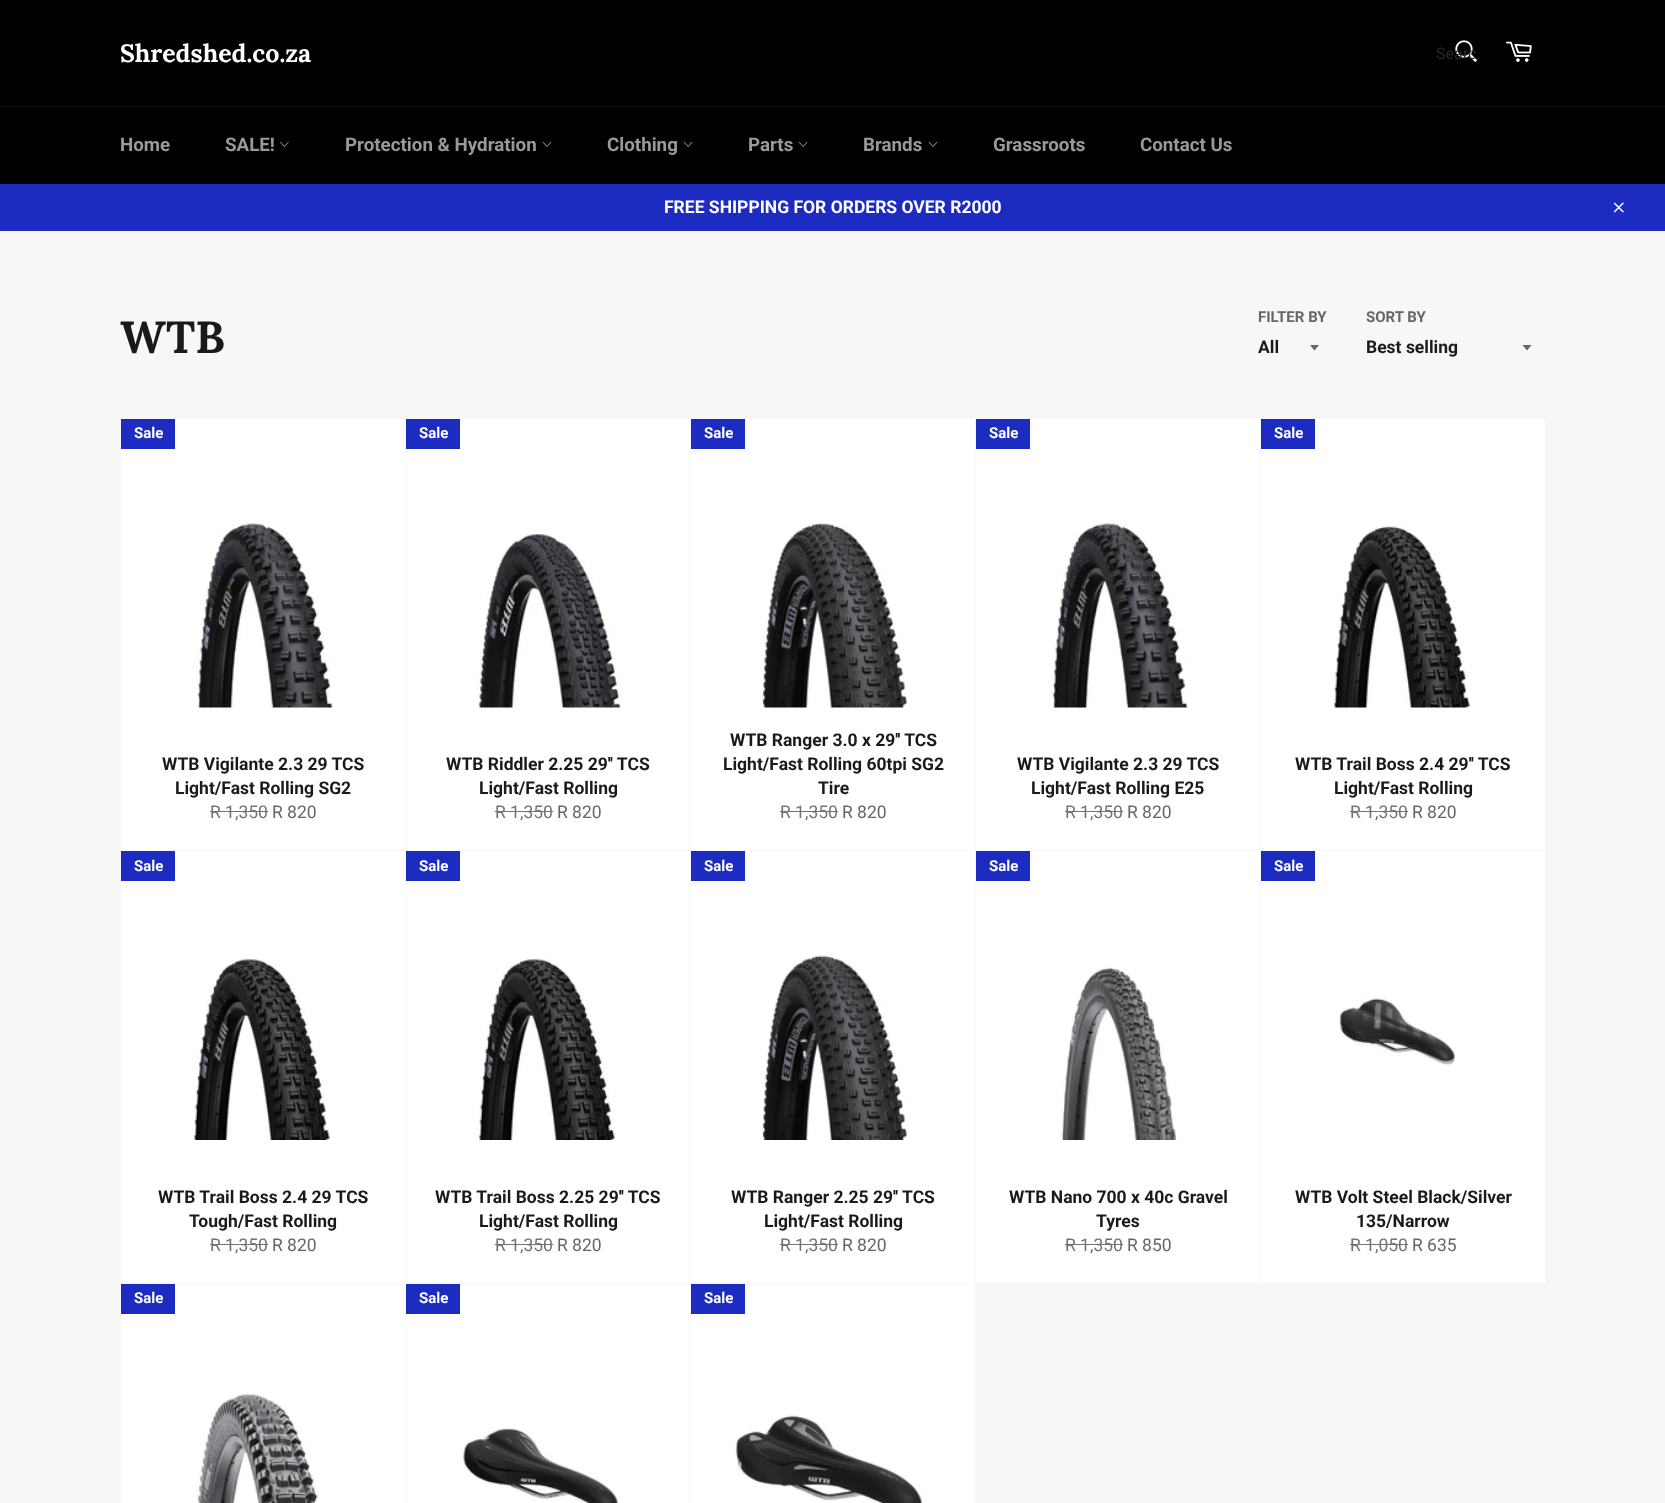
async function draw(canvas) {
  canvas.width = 1665;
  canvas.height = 1503;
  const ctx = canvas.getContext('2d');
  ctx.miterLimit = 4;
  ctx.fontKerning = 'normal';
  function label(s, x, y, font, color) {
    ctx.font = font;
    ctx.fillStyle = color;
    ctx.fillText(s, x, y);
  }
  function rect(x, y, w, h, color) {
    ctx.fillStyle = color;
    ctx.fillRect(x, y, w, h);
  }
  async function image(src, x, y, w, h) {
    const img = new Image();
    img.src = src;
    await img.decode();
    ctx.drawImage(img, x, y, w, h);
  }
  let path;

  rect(0, 0, 1665, 1503, '#f7f7f7');
  rect(0, 0, 1665, 106, '#000');
  label('Shredshed.co.za', 120, 62, 'bold 25px Lora', '#fff');
  await image('assets/img1.png', 1455, 40, 22, 22);
  ctx.save();
  ctx.beginPath();
  ctx.rect(1436, 44, 40, 19);
  ctx.clip();
  label('Searc', 1436, 59, '16px Roboto', '#282828');
  ctx.restore();
  await image('assets/img2.png', 1506, 41, 26, 21);
  rect(0, 107, 1665, 77, '#000');
  rect(0, 106, 1665, 1, '#0d0d0d');
  label('Home', 120, 151, 'bold 18.75px Roboto', '#999');
  label('SALE!', 225, 151, 'bold 18.75px Roboto', '#999');
  await image('assets/img3.png', 280, 141, 9, 6);
  label('Protection & Hydration', 345, 151, 'bold 18.75px Roboto', '#999');
  await image('assets/img4.png', 542, 141, 10, 6);
  label('Clothing', 607, 151, 'bold 18.75px Roboto', '#999');
  await image('assets/img5.png', 683, 141, 10, 6);
  label('Parts', 748, 151, 'bold 18.75px Roboto', '#999');
  await image('assets/img5.png', 798, 141, 10, 6);
  label('Brands', 863, 151, 'bold 18.75px Roboto', '#999');
  await image('assets/img5.png', 928, 141, 10, 6);
  label('Grassroots', 993, 151, 'bold 18.75px Roboto', '#999');
  label('Contact Us', 1140, 151, 'bold 18.75px Roboto', '#999');
  rect(0, 184, 1665, 47, '#1d2cc0');
  label('FREE SHIPPING FOR ORDERS OVER R2000', 664, 213, 'bold 17.5px Roboto', '#fff');
  await image('assets/img6.png', 1613, 202, 11, 11);
  label('WTB', 120, 353, 'bold 45px Lora', '#1a1a1a');
  label('FILTER BY', 1258, 322, 'bold 15px Roboto', '#666');
  path = new Path2D('M1310 345L1314.5 350.5L1319 345Z');
  ctx.fill(path);
  label('All', 1258, 353, 'bold 17.5px Roboto', '#1a1a1a');
  label('SORT BY', 1366, 322, 'bold 15px Roboto', '#666');
  path = new Path2D('M1522.5 345L1527 350.5L1531.5 345Z');
  ctx.fill(path);
  label('Best selling', 1366, 353, 'bold 17.5px Roboto', '#1a1a1a');
  rect(121, 419, 284, 431, '#fff');
  rect(121, 419, 54, 30, '#1d2cc0');
  label('Sale', 134, 438, 'bold 15px Roboto', '#fff');
  await image('assets/img7.png', 197, 521, 137, 187);
  label('WTB Vigilante 2.3 29 TCS', 162, 770, 'bold 17.5px Roboto', '#1a1a1a');
  label('Light/Fast Rolling SG2', 175, 794, 'bold 17.5px Roboto', '#1a1a1a');
  label('R 1,350', 210, 818, '17.5px Roboto', '#737373');
  rect(210, 811, 58, 1, '#737373');
  label('R 820', 272, 818, '17.5px Roboto', '#666');
  rect(406, 419, 284, 431, '#fff');
  rect(406, 419, 54, 30, '#1d2cc0');
  label('Sale', 419, 438, 'bold 15px Roboto', '#fff');
  await image('assets/img8.png', 477, 534, 146, 174);
  label('WTB Riddler 2.25 29\'\' TCS', 446, 770, 'bold 17.5px Roboto', '#1a1a1a');
  label('Light/Fast Rolling', 479, 794, 'bold 17.5px Roboto', '#1a1a1a');
  label('R 1,350', 495, 818, '17.5px Roboto', '#737373');
  rect(495, 811, 58, 1, '#737373');
  label('R 820', 557, 818, '17.5px Roboto', '#666');
  rect(691, 419, 284, 431, '#fff');
  rect(691, 419, 54, 30, '#1d2cc0');
  label('Sale', 704, 438, 'bold 15px Roboto', '#fff');
  await image('assets/img9.png', 762, 523, 145, 185);
  label('WTB Ranger 3.0 x 29\'\' TCS', 730, 746, 'bold 17.5px Roboto', '#1a1a1a');
  label('Light/Fast Rolling 60tpi SG2', 723, 770, 'bold 17.5px Roboto', '#1a1a1a');
  label('Tire', 818, 794, 'bold 17.5px Roboto', '#1a1a1a');
  label('R 1,350', 780, 818, '17.5px Roboto', '#737373');
  rect(780, 811, 58, 1, '#737373');
  label('R 820', 842, 818, '17.5px Roboto', '#666');
  rect(976, 419, 284, 431, '#fff');
  rect(976, 419, 54, 30, '#1d2cc0');
  label('Sale', 989, 438, 'bold 15px Roboto', '#fff');
  await image('assets/img7.png', 1052, 521, 137, 187);
  label('WTB Vigilante 2.3 29 TCS', 1017, 770, 'bold 17.5px Roboto', '#1a1a1a');
  label('Light/Fast Rolling E25', 1031, 794, 'bold 17.5px Roboto', '#1a1a1a');
  label('R 1,350', 1065, 818, '17.5px Roboto', '#737373');
  rect(1065, 811, 58, 1, '#737373');
  label('R 820', 1127, 818, '17.5px Roboto', '#666');
  rect(1261, 419, 284, 431, '#fff');
  rect(1261, 419, 54, 30, '#1d2cc0');
  label('Sale', 1274, 438, 'bold 15px Roboto', '#fff');
  await image('assets/img10.png', 1332, 526, 138, 182);
  label('WTB Trail Boss 2.4 29\'\' TCS', 1295, 770, 'bold 17.5px Roboto', '#1a1a1a');
  label('Light/Fast Rolling', 1334, 794, 'bold 17.5px Roboto', '#1a1a1a');
  label('R 1,350', 1350, 818, '17.5px Roboto', '#737373');
  rect(1350, 811, 58, 1, '#737373');
  label('R 820', 1412, 818, '17.5px Roboto', '#666');
  rect(121, 851, 284, 432, '#fff');
  rect(121, 851, 54, 30, '#1d2cc0');
  label('Sale', 134, 871, 'bold 15px Roboto', '#fff');
  await image('assets/img11.png', 192, 958, 138, 182);
  label('WTB Trail Boss 2.4 29 TCS', 158, 1203, 'bold 17.5px Roboto', '#1a1a1a');
  label('Tough/Fast Rolling', 189, 1227, 'bold 17.5px Roboto', '#1a1a1a');
  label('R 1,350', 210, 1251, '17.5px Roboto', '#737373');
  rect(210, 1244, 58, 1, '#737373');
  label('R 820', 272, 1251, '17.5px Roboto', '#666');
  rect(406, 851, 284, 432, '#fff');
  rect(406, 851, 54, 30, '#1d2cc0');
  label('Sale', 419, 871, 'bold 15px Roboto', '#fff');
  await image('assets/img11.png', 477, 958, 138, 182);
  label('WTB Trail Boss 2.25 29\'\' TCS', 435, 1203, 'bold 17.5px Roboto', '#1a1a1a');
  label('Light/Fast Rolling', 479, 1227, 'bold 17.5px Roboto', '#1a1a1a');
  label('R 1,350', 495, 1251, '17.5px Roboto', '#737373');
  rect(495, 1244, 58, 1, '#737373');
  label('R 820', 557, 1251, '17.5px Roboto', '#666');
  rect(691, 851, 284, 432, '#fff');
  rect(691, 851, 54, 30, '#1d2cc0');
  label('Sale', 704, 871, 'bold 15px Roboto', '#fff');
  await image('assets/img12.png', 762, 955, 147, 185);
  label('WTB Ranger 2.25 29\'\' TCS', 731, 1203, 'bold 17.5px Roboto', '#1a1a1a');
  label('Light/Fast Rolling', 764, 1227, 'bold 17.5px Roboto', '#1a1a1a');
  label('R 1,350', 780, 1251, '17.5px Roboto', '#737373');
  rect(780, 1244, 58, 1, '#737373');
  label('R 820', 842, 1251, '17.5px Roboto', '#666');
  rect(976, 851, 284, 432, '#fff');
  rect(976, 851, 54, 30, '#1d2cc0');
  label('Sale', 989, 871, 'bold 15px Roboto', '#fff');
  await image('assets/img13.png', 1061, 967, 116, 173);
  label('WTB Nano 700 x 40c Gravel', 1009, 1203, 'bold 17.5px Roboto', '#1a1a1a');
  label('Tyres', 1096, 1227, 'bold 17.5px Roboto', '#1a1a1a');
  label('R 1,350', 1065, 1251, '17.5px Roboto', '#737373');
  rect(1065, 1244, 58, 1, '#737373');
  label('R 850', 1127, 1251, '17.5px Roboto', '#666');
  rect(1261, 851, 284, 432, '#fff');
  rect(1261, 851, 54, 30, '#1d2cc0');
  label('Sale', 1274, 871, 'bold 15px Roboto', '#fff');
  await image('assets/img14.png', 1338, 998, 117, 68);
  label('WTB Volt Steel Black/Silver', 1295, 1203, 'bold 17.5px Roboto', '#1a1a1a');
  label('135/Narrow', 1356, 1227, 'bold 17.5px Roboto', '#1a1a1a');
  label('R 1,050', 1350, 1251, '17.5px Roboto', '#737373');
  rect(1350, 1244, 58, 1, '#737373');
  label('R 635', 1412, 1251, '17.5px Roboto', '#666');
  rect(121, 1284, 284, 219, '#fff');
  rect(121, 1284, 54, 30, '#1d2cc0');
  label('Sale', 134, 1303, 'bold 15px Roboto', '#fff');
  await image('assets/img15.png', 197, 1391, 121, 112);
  rect(406, 1284, 284, 219, '#fff');
  rect(406, 1284, 54, 30, '#1d2cc0');
  label('Sale', 419, 1303, 'bold 15px Roboto', '#fff');
  await image('assets/img16.png', 463, 1427, 157, 76);
  rect(691, 1284, 284, 219, '#fff');
  rect(691, 1284, 54, 30, '#1d2cc0');
  label('Sale', 704, 1303, 'bold 15px Roboto', '#fff');
  await image('assets/img17.png', 734, 1414, 190, 89);
}

draw(document.querySelector('canvas'));
